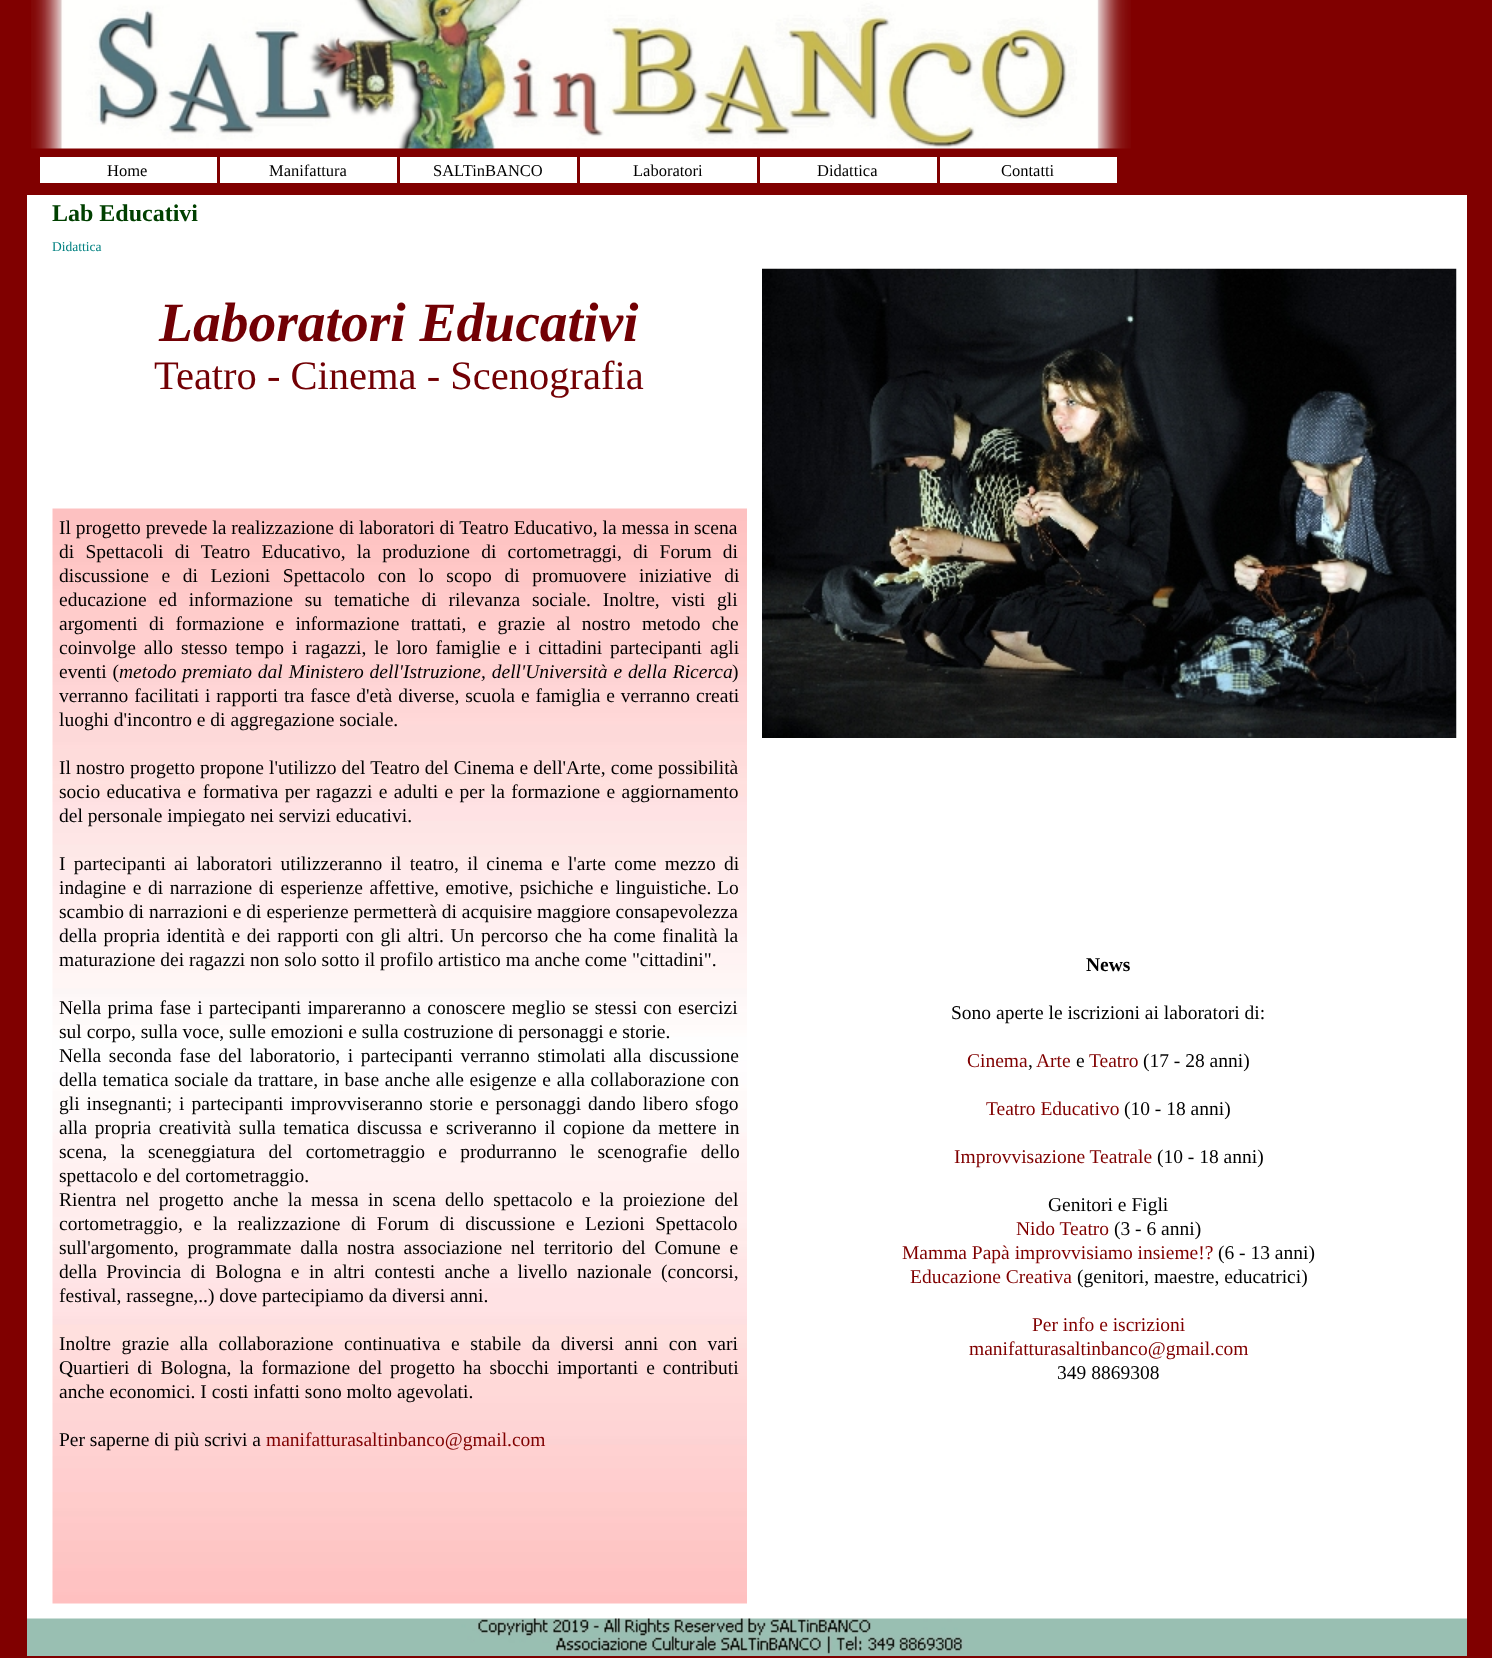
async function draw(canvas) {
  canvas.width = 1492;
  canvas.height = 1658;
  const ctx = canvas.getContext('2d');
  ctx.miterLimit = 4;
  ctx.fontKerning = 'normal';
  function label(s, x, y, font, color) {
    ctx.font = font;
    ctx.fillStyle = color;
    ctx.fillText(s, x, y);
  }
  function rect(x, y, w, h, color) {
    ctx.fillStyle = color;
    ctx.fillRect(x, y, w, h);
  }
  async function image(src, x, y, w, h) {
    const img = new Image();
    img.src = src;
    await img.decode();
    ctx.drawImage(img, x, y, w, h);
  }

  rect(0, 0, 1492, 1658, '#800000');
  await image('assets/img1.png', 31, 0, 1100, 149);
  rect(27, 195, 1440, 1424, '#fff');
  rect(40, 157, 177, 26, '#fff');
  label('Home', 107, 176, '16.5px Liberation Serif', '#000');
  rect(220, 157, 177, 26, '#fff');
  label('Manifattura', 269, 176, '16.5px Liberation Serif', '#000');
  rect(400, 157, 177, 26, '#fff');
  label('SALTinBANCO', 433, 176, '16.5px Liberation Serif', '#000');
  rect(580, 157, 177, 26, '#fff');
  label('Laboratori', 633, 176, '16.5px Liberation Serif', '#000');
  rect(760, 157, 177, 26, '#fff');
  label('Didattica', 817, 176, '16.5px Liberation Serif', '#000');
  rect(940, 157, 177, 26, '#fff');
  label('Contatti', 1001, 176, '16.5px Liberation Serif', '#000');
  label('Lab Educativi', 52, 221, 'bold 24px Liberation Serif', '#004000');
  label('Didattica', 52, 251, '13.5px Liberation Serif', '#008080');
  label('Laboratori Educativi', 159, 341, 'italic bold 55.5px Liberation Serif', '#720004');
  label('Teatro - Cinema - Scenografia', 154, 389, '40.5px Liberation Serif', '#720004');
  await image('assets/img2.png', 762, 268, 695, 470);
  await image('assets/img3.png', 52, 508, 695, 1096);
  label('Il progetto prevede la realizzazione di laboratori di Teatro Educativo, la messa in scena', 59, 534, '19.5px Liberation Serif', '#000');
  ctx.wordSpacing = '6.4px';
  label('di Spettacoli di Teatro Educativo, la produzione di cortometraggi, di Forum di', 59, 558, '19.5px Liberation Serif', '#000');
  ctx.wordSpacing = '7.75px';
  label('discussione e di Lezioni Spettacolo con lo scopo di promuovere iniziative di', 59, 582, '19.5px Liberation Serif', '#000');
  ctx.wordSpacing = '7px';
  label('educazione ed informazione su tematiche di rilevanza sociale. Inoltre, visti gli', 59, 606, '19.5px Liberation Serif', '#000');
  ctx.wordSpacing = '6.4px';
  label('argomenti di formazione e informazione trattati, e grazie al nostro metodo che', 59, 630, '19.5px Liberation Serif', '#000');
  ctx.wordSpacing = '3px';
  label('coinvolge allo stesso tempo i ragazzi, le loro famiglie e i cittadini partecipanti agli', 59, 654, '19.5px Liberation Serif', '#000');
  ctx.wordSpacing = '1px';
  label('eventi (', 59, 678, '19.5px Liberation Serif', '#000');
  label('metodo premiato dal Ministero dell\'Istruzione, dell\'Università e della Ricerca', 119, 678, 'italic 19.5px Liberation Serif', '#000');
  ctx.wordSpacing = '0px';
  label(')', 732, 678, '19.5px Liberation Serif', '#000');
  ctx.wordSpacing = '1px';
  label('verranno facilitati i rapporti tra fasce d\'età diverse, scuola e famiglia e verranno creati', 59, 702, '19.5px Liberation Serif', '#000');
  ctx.wordSpacing = '0px';
  label('luoghi d\'incontro e di aggregazione sociale.', 59, 726, '19.5px Liberation Serif', '#000');
  ctx.wordSpacing = '0.25px';
  label('Il nostro progetto propone l\'utilizzo del Teatro del Cinema e dell\'Arte, come possibilità', 59, 774, '19.5px Liberation Serif', '#000');
  ctx.wordSpacing = '1.5px';
  label('socio educativa e formativa per ragazzi e adulti e per la formazione e aggiornamento', 59, 798, '19.5px Liberation Serif', '#000');
  ctx.wordSpacing = '0px';
  label('del personale impiegato nei servizi educativi.', 59, 822, '19.5px Liberation Serif', '#000');
  ctx.wordSpacing = '3.4px';
  label('I partecipanti ai laboratori utilizzeranno il teatro, il cinema e l\'arte come mezzo di', 59, 870, '19.5px Liberation Serif', '#000');
  ctx.wordSpacing = '1.75px';
  label('indagine e di narrazione di esperienze affettive, emotive, psichiche e linguistiche.', 59, 894, '19.5px Liberation Serif', '#000');
  ctx.wordSpacing = '0px';
  label('Lo', 717, 894, '19.5px Liberation Serif', '#000');
  label('scambio di narrazioni e di esperienze permetterà di acquisire maggiore consapevolezza', 59, 918, '19.5px Liberation Serif', '#000');
  ctx.wordSpacing = '1.75px';
  label('della propria identità e dei rapporti con gli altri. Un percorso che ha come finalità la', 59, 942, '19.5px Liberation Serif', '#000');
  ctx.wordSpacing = '0px';
  label('maturazione dei ragazzi non solo sotto il profilo artistico ma anche come "cittadini".', 59, 966, '19.5px Liberation Serif', '#000');
  ctx.wordSpacing = '1.5px';
  label('Nella prima fase i partecipanti impareranno a conoscere meglio se stessi con esercizi', 59, 1014, '19.5px Liberation Serif', '#000');
  ctx.wordSpacing = '0px';
  label('sul corpo, sulla voce, sulle emozioni e sulla costruzione di personaggi e storie.', 59, 1038, '19.5px Liberation Serif', '#000');
  ctx.wordSpacing = '2.75px';
  label('Nella seconda fase del laboratorio, i partecipanti verranno stimolati alla discussione', 59, 1062, '19.5px Liberation Serif', '#000');
  ctx.wordSpacing = '0.75px';
  label('della tematica sociale da trattare, in base anche alle esigenze e alla collaborazione con', 59, 1086, '19.5px Liberation Serif', '#000');
  ctx.wordSpacing = '2.1px';
  label('gli insegnanti; i partecipanti improvviseranno storie e personaggi dando libero sfogo', 59, 1110, '19.5px Liberation Serif', '#000');
  ctx.wordSpacing = '2.75px';
  label('alla propria creatività sulla tematica discussa e scriveranno il copione da mettere in', 59, 1134, '19.5px Liberation Serif', '#000');
  ctx.wordSpacing = '8.5px';
  label('scena, la sceneggiatura del cortometraggio e produrranno le scenografie dello', 59, 1158, '19.5px Liberation Serif', '#000');
  ctx.wordSpacing = '0px';
  label('spettacolo e del cortometraggio.', 59, 1182, '19.5px Liberation Serif', '#000');
  ctx.wordSpacing = '4.4px';
  label('Rientra nel progetto anche la messa in scena dello spettacolo e la proiezione del', 59, 1206, '19.5px Liberation Serif', '#000');
  ctx.wordSpacing = '5.75px';
  label('cortometraggio, e la realizzazione di Forum di discussione e Lezioni Spettacolo', 59, 1230, '19.5px Liberation Serif', '#000');
  ctx.wordSpacing = '4px';
  label('sull\'argomento, programmate dalla nostra associazione nel territorio del Comune e', 59, 1254, '19.5px Liberation Serif', '#000');
  ctx.wordSpacing = '4.6px';
  label('della Provincia di Bologna e in altri contesti anche a livello nazionale (concorsi,', 59, 1278, '19.5px Liberation Serif', '#000');
  ctx.wordSpacing = '0px';
  label('festival, rassegne,..) dove partecipiamo da diversi anni.', 59, 1302, '19.5px Liberation Serif', '#000');
  ctx.wordSpacing = '5.75px';
  label('Inoltre grazie alla collaborazione continuativa e stabile da diversi anni con vari', 59, 1350, '19.5px Liberation Serif', '#000');
  ctx.wordSpacing = '3.1px';
  label('Quartieri di Bologna, la formazione del progetto ha sbocchi importanti e contributi', 59, 1374, '19.5px Liberation Serif', '#000');
  ctx.wordSpacing = '0px';
  label('anche economici. I costi infatti sono molto agevolati.', 59, 1398, '19.5px Liberation Serif', '#000');
  label('Per saperne di più scrivi a', 59, 1446, '19.5px Liberation Serif', '#000');
  label('manifatturasaltinbanco@gmail.com', 266, 1446, '19.5px Liberation Serif', '#800000');
  label('News', 1086, 971, 'bold 19.5px Liberation Serif', '#000');
  label('Sono aperte le iscrizioni ai laboratori di:', 951, 1019, '19.5px Liberation Serif', '#000');
  label('Cinema', 967, 1067, '19.5px Liberation Serif', '#800000');
  label(',', 1028, 1067, '19.5px Liberation Serif', '#000');
  label('Arte', 1036, 1067, '19.5px Liberation Serif', '#800000');
  label('e', 1076, 1067, '19.5px Liberation Serif', '#000');
  label('Teatro', 1089, 1067, '19.5px Liberation Serif', '#800000');
  label('(17 - 28 anni)', 1143, 1067, '19.5px Liberation Serif', '#000');
  label('Teatro Educativo', 986, 1115, '19.5px Liberation Serif', '#800000');
  label('(10 - 18 anni)', 1124, 1115, '19.5px Liberation Serif', '#000');
  label('Improvvisazione Teatrale', 954, 1163, '19.5px Liberation Serif', '#800000');
  label('(10 - 18 anni)', 1157, 1163, '19.5px Liberation Serif', '#000');
  label('Genitori e Figli', 1048, 1211, '19.5px Liberation Serif', '#000');
  label('Nido Teatro', 1016, 1235, '19.5px Liberation Serif', '#800000');
  label('(3 - 6 anni)', 1114, 1235, '19.5px Liberation Serif', '#000');
  label('Mamma Papà improvvisiamo insieme!?', 902, 1259, '19.5px Liberation Serif', '#800000');
  label('(6 - 13 anni)', 1218, 1259, '19.5px Liberation Serif', '#000');
  label('Educazione Creativa', 910, 1283, '19.5px Liberation Serif', '#800000');
  label('(genitori, maestre, educatrici)', 1077, 1283, '19.5px Liberation Serif', '#000');
  label('Per info e iscrizioni', 1032, 1331, '19.5px Liberation Serif', '#800000');
  label('manifatturasaltinbanco@gmail.com', 969, 1355, '19.5px Liberation Serif', '#800000');
  label('349 8869308', 1057, 1379, '19.5px Liberation Serif', '#000');
  rect(27, 1654, 1440, 2, '#99bfb3');
  await image('assets/img4.png', 27, 1618, 1440, 36);
}

draw(document.querySelector('canvas'));
